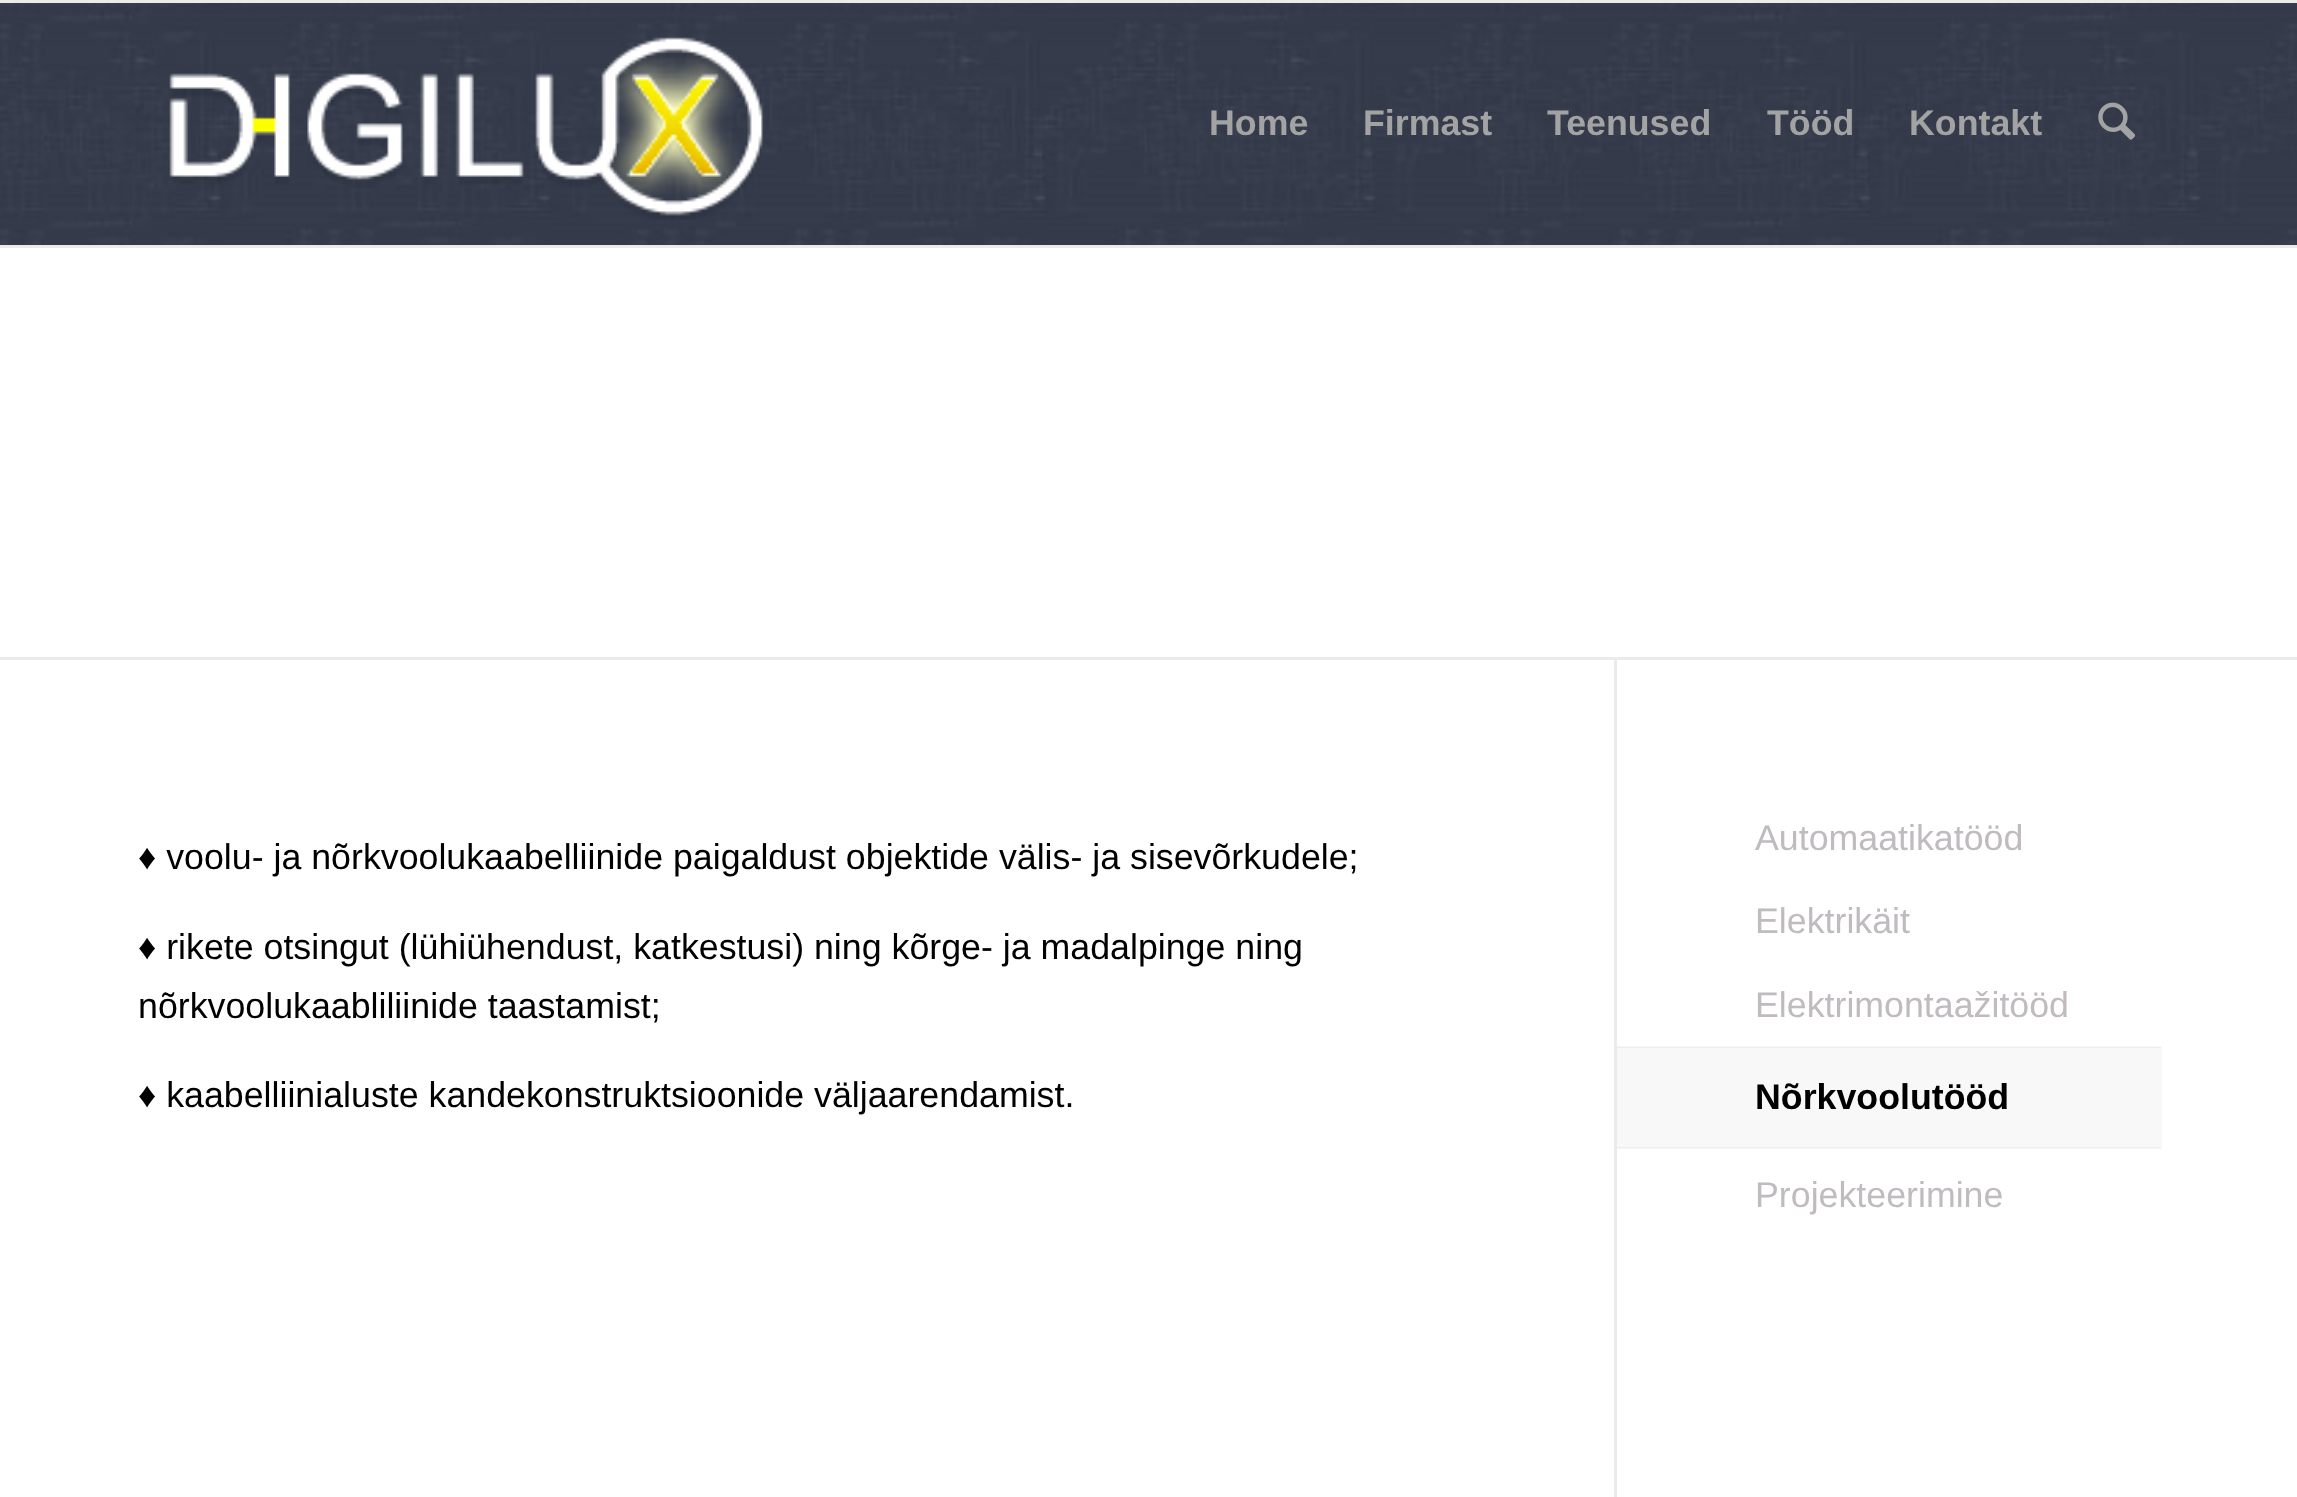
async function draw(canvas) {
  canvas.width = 2297;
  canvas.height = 1497;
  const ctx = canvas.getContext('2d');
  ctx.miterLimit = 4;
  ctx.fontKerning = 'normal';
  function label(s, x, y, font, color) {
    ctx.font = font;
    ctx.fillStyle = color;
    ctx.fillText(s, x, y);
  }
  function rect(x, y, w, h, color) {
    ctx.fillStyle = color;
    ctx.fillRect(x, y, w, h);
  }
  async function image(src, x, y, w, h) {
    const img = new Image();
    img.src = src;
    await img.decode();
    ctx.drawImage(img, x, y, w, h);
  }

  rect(0, 0, 2297, 1497, '#fff');
  await image('assets/img1.png', 0, 3, 2297, 242);
  rect(0, 0, 2297, 3, '#ebebeb');
  rect(0, 245, 2297, 3, '#ebebeb');
  await image('assets/img2.png', 169, 37, 594, 183);
  label('Home', 1209, 135, 'bold 35.75px Liberation Sans', '#a3a3a3');
  label('Firmast', 1363, 135, 'bold 35.75px Liberation Sans', '#a3a3a3');
  label('Teenused', 1547, 135, 'bold 35.75px Liberation Sans', '#a3a3a3');
  label('Tööd', 1767, 135, 'bold 35.75px Liberation Sans', '#a3a3a3');
  label('Kontakt', 1909, 135, 'bold 35.75px Liberation Sans', '#a3a3a3');
  await image('assets/img3.png', 2098, 102, 38, 38);
  rect(0, 657, 2297, 3, '#ebebeb');
  label('♦ voolu- ja nõrkvoolukaabelliinide paigaldust objektide välis- ja sisevõrkudele;', 138, 869, '35.75px Liberation Sans', '#000');
  label('♦ rikete otsingut (lühiühendust, katkestusi) ning kõrge- ja madalpinge ning', 138, 959, '35.75px Liberation Sans', '#000');
  label('nõrkvoolukaabliliinide taastamist;', 138, 1018, '35.75px Liberation Sans', '#000');
  label('♦ kaabelliinialuste kandekonstruktsioonide väljaarendamist.', 138, 1107, '35.75px Liberation Sans', '#000');
  rect(1614, 660, 3, 837, '#ebebeb');
  label('Automaatikatööd', 1755, 850, '35.75px Liberation Sans', '#bfbbbf');
  label('Elektrikäit', 1755, 933, '35.75px Liberation Sans', '#bfbbbf');
  label('Elektrimontaažitööd', 1755, 1017, '35.75px Liberation Sans', '#bfbbbf');
  ctx.save();
  ctx.beginPath();
  ctx.rect(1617, 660, 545, 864);
  ctx.clip();
  ctx.fillStyle = '#00000033';
  ctx.filter = 'blur(1.5px)';
  ctx.beginPath();
  ctx.rect(1614, 1048, 548, 99);
  ctx.fill();
  ctx.filter = 'none';
  ctx.restore();
  rect(1617, 1048, 545, 99, '#f8f8f8');
  label('Nõrkvoolutööd', 1755, 1109, 'bold 35.75px Liberation Sans', '#000');
  label('Projekteerimine', 1755, 1207, '35.75px Liberation Sans', '#bfbbbf');
}

draw(document.querySelector('canvas'));
